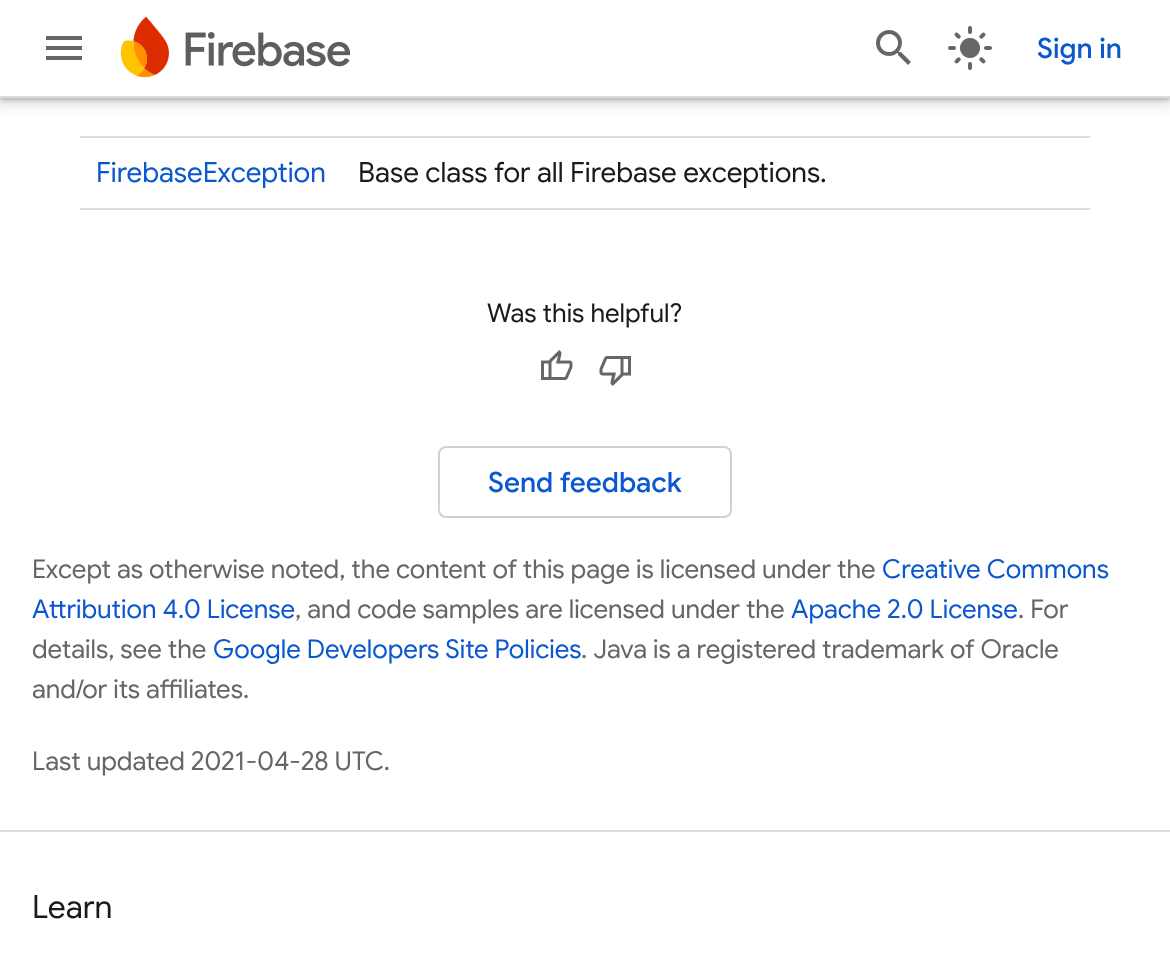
async function draw(canvas) {
  canvas.width = 1170;
  canvas.height = 967;
  const ctx = canvas.getContext('2d');
  ctx.miterLimit = 4;
  ctx.fontKerning = 'normal';
  function label(s, x, y, font, color) {
    ctx.font = font;
    ctx.fillStyle = color;
    ctx.fillText(s, x, y);
  }
  function rect(x, y, w, h, color) {
    ctx.fillStyle = color;
    ctx.fillRect(x, y, w, h);
  }
  async function image(src, x, y, w, h) {
    const img = new Image();
    img.src = src;
    await img.decode();
    ctx.drawImage(img, x, y, w, h);
  }
  let path;

  rect(0, 0, 1170, 967, '#fff');
  ctx.fillStyle = '#3c404326';
  ctx.filter = 'blur(6px)';
  ctx.beginPath();
  ctx.rect(-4, -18, 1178, 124);
  ctx.fill();
  ctx.filter = 'none';
  ctx.fillStyle = '#3c40434d';
  ctx.filter = 'blur(2px)';
  ctx.beginPath();
  ctx.rect(0, -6, 1170, 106);
  ctx.fill();
  ctx.filter = 'none';
  rect(0, 0, 1170, 96, '#fff');
  rect(0, 96, 1170, 2, '#dadce0');
  ctx.fillStyle = '#666';
  path = new Path2D('M46 36H82V40H46ZM46 50V46H82V50ZM46 60V56H82V60Z');
  ctx.fill(path);
  await image('assets/img1.png', 120, 16, 231, 62);
  await image('assets/img2.png', 876, 30, 35, 35);
  await image('assets/img3.png', 948, 26, 44, 44);
  label('Sign in', 1037, 58, '500 28px Google Sans', '#0b57d0');
  rect(80, 136, 1010, 2, '#dadce0');
  rect(80, 208, 1010, 2, '#dadce0');
  label('FirebaseException', 96, 182, '28px Google Sans', '#0b57d0');
  label('Base class for all Firebase exceptions.', 358, 182, '28px Google Sans', '#1a1a1a');
  label('Was this helpful?', 487, 322, '26px Google Sans', '#1a1a1a');
  await image('assets/img4.png', 541, 350, 32, 30);
  await image('assets/img5.png', 599, 356, 32, 30);
  ctx.beginPath();
  ctx.roundRect(439, 447, 292, 70, 7);
  ctx.strokeStyle = '#cdd2db';
  ctx.lineWidth = 2;
  ctx.stroke();
  label('Send feedback', 488, 492, '500 28px Google Sans', '#0b57d0');
  label('Except as otherwise noted, the content of this page is licensed under the', 32, 578, '26px Google Sans', '#666');
  label('Creative Commons', 882, 578, '26px Google Sans', '#0b57d0');
  label('Attribution 4.0 License', 32, 618, '26px Google Sans', '#0b57d0');
  label(', and code samples are licensed under the', 295, 618, '26px Google Sans', '#666');
  label('Apache 2.0 License', 791, 618, '26px Google Sans', '#0b57d0');
  label('. For', 1018, 618, '26px Google Sans', '#666');
  label('details, see the', 32, 658, '26px Google Sans', '#666');
  label('Google Developers Site Policies', 213, 658, '26px Google Sans', '#0b57d0');
  label('. Java is a registered trademark of Oracle', 581, 658, '26px Google Sans', '#666');
  label('and/or its affiliates.', 32, 698, '26px Google Sans', '#666');
  label('Last updated 2021-04-28 UTC.', 32, 770, '26px Google Sans', '#666');
  rect(0, 830, 1170, 2, '#dadce0');
  label('Learn', 32, 918, '32px Google Sans', '#1a1a1a');
}

draw(document.querySelector('canvas'));
